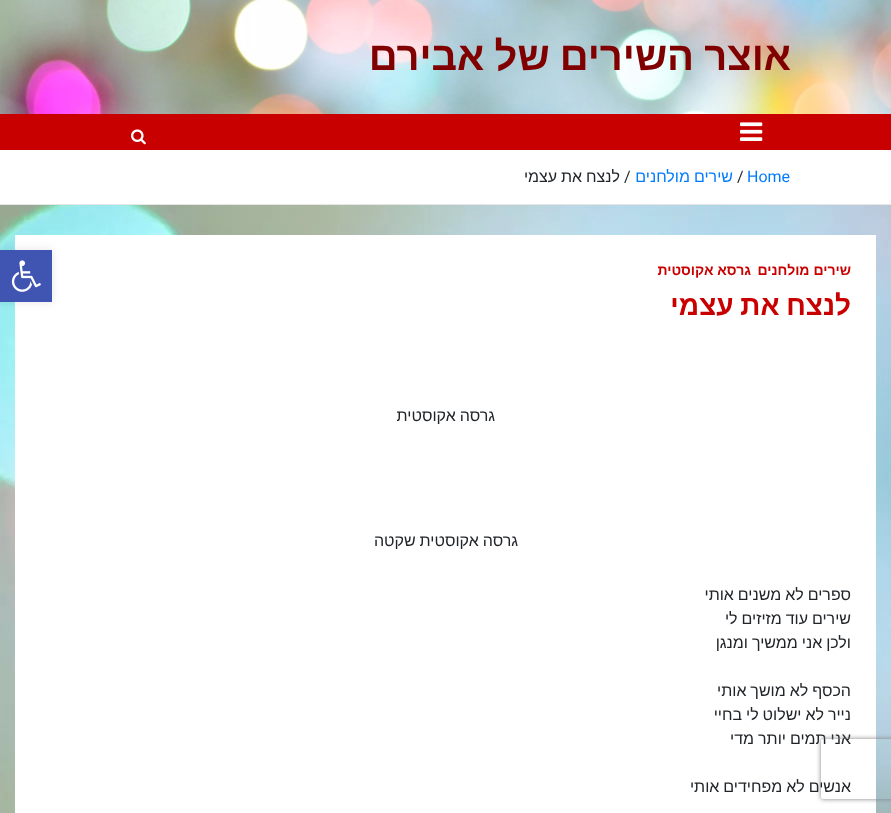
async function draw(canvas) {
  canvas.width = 891;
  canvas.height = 813;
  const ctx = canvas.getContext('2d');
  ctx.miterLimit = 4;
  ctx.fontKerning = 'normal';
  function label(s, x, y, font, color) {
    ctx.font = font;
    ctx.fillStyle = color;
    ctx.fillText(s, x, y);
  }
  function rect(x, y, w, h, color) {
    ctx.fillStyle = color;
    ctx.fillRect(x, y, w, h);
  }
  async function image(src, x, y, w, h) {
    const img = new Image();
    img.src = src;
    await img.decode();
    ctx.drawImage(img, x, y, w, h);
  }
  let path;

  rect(0, 0, 891, 813, '#fff');
  await image('assets/img1.png', 0, 205, 891, 608);
  await image('assets/img2.png', 0, 0, 891, 114);
  ctx.wordSpacing = '-1px';
  ctx.direction = 'rtl';
  label('אוצר השירים של אבירם', 791, 70, 'bold 40px Liberation Sans', '#800000');
  rect(0, 114, 891, 36, '#c80000');
  await image('assets/img3.png', 740, 122, 23, 19);
  await image('assets/img4.png', 131, 129, 15, 16);
  rect(0, 204, 891, 1, '#e6e6e6');
  ctx.wordSpacing = '0px';
  ctx.direction = 'ltr';
  label('Home', 747, 182, '16px Roboto', '#007bff');
  label('/', 737, 182, '16px Roboto', '#212529');
  ctx.wordSpacing = '-0.5px';
  ctx.direction = 'rtl';
  label('שירים מולחנים', 733, 182, '16px Liberation Sans', '#007bff');
  ctx.wordSpacing = '0px';
  ctx.direction = 'ltr';
  label('/', 624, 182, '16px Roboto', '#212529');
  ctx.wordSpacing = '-0.5px';
  ctx.direction = 'rtl';
  label('לנצח את עצמי', 620, 182, '16px Liberation Sans', '#212529');
  rect(15, 235, 861, 578, '#fff');
  ctx.wordSpacing = '0px';
  label('שירים מולחנים', 851, 275, 'bold 14px Liberation Sans', '#c80000');
  label('גרסא אקוסטית', 751, 275, 'bold 14px Liberation Sans', '#c80000');
  ctx.wordSpacing = '-1px';
  label('לנצח את עצמי', 851, 315, 'bold 28px Liberation Sans', '#c80000');
  ctx.wordSpacing = '-0.5px';
  label('גרסה אקוסטית', 495, 421, '16px Liberation Sans', '#212529');
  label('גרסה אקוסטית שקטה', 518, 546, '16px Liberation Sans', '#212529');
  label('ספרים לא משנים אותי', 851, 600, '16px Liberation Sans', '#212529');
  label('שירים עוד מזיזים לי', 851, 624, '16px Liberation Sans', '#212529');
  label('ולכן אני ממשיך ומנגן', 851, 648, '16px Liberation Sans', '#212529');
  label('הכסף לא מושך אותי', 851, 696, '16px Liberation Sans', '#212529');
  label('נייר לא ישלוט לי בחיי', 851, 720, '16px Liberation Sans', '#212529');
  label('אני תמים יותר מדי', 851, 744, '16px Liberation Sans', '#212529');
  label('אנשים לא מפחידים אותי', 851, 792, '16px Liberation Sans', '#212529');
  ctx.fillStyle = '#0000001a';
  ctx.filter = 'blur(5px)';
  ctx.beginPath();
  ctx.rect(0, 250, 52, 52);
  ctx.fill();
  ctx.filter = 'none';
  rect(0, 250, 52, 52, '#4054b2');
  await image('assets/img5.png', 11, 260, 30, 32);
  ctx.save();
  path = new Path2D('M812 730H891V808H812ZM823 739H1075C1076 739 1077 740 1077 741V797C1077 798 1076 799 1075 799H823C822 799 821 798 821 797V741C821 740 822 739 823 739Z');
  ctx.clip(path, 'evenodd');
  ctx.fillStyle = '#808080';
  ctx.filter = 'blur(2.5px)';
  ctx.beginPath();
  ctx.roundRect(821, 739, 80, 60, 2);
  ctx.fill();
  ctx.filter = 'none';
  ctx.restore();
}

draw(document.querySelector('canvas'));
